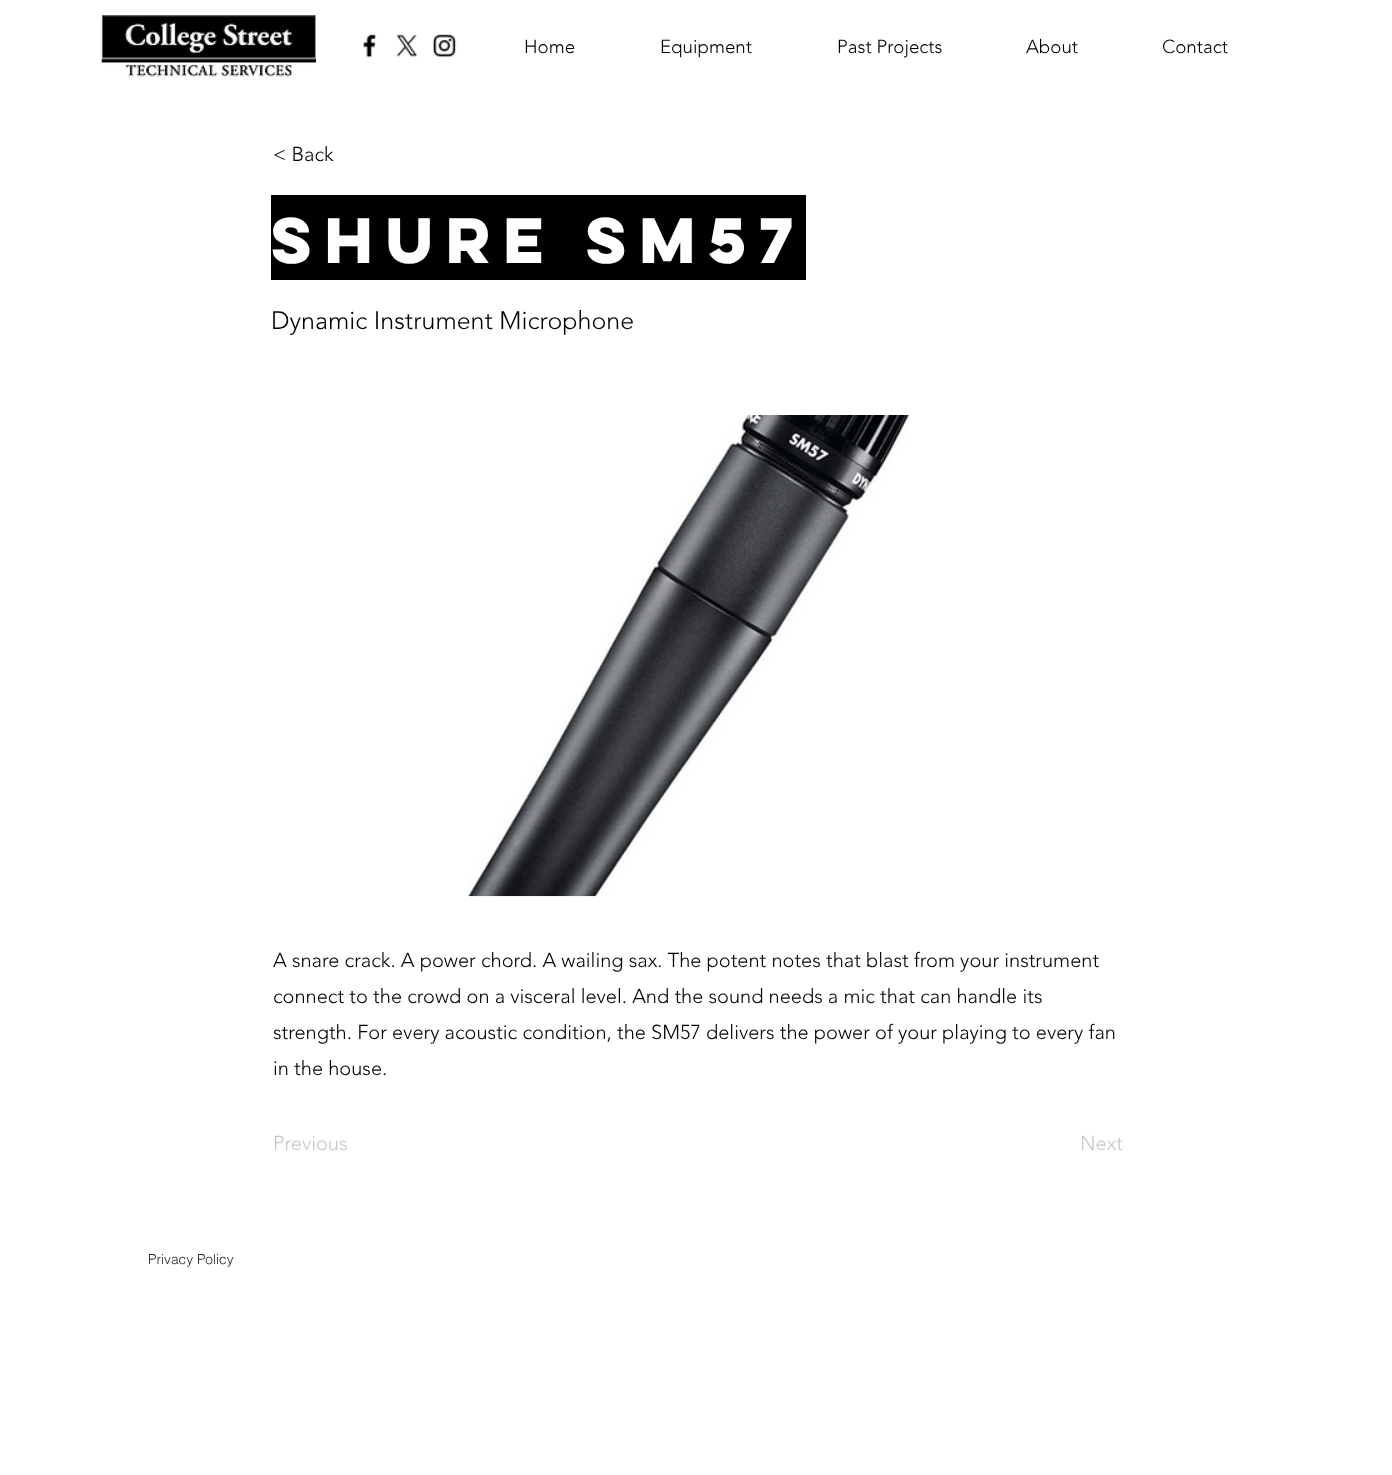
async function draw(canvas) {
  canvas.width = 1392;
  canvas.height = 1475;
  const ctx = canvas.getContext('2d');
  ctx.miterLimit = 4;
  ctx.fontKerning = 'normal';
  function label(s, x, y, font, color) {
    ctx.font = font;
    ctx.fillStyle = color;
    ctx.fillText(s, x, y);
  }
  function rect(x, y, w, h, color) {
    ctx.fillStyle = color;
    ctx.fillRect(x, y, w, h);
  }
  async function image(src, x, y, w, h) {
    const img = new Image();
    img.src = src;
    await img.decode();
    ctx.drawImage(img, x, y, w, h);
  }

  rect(0, 0, 1392, 1475, '#fff');
  await image('assets/img1.png', 101, 15, 215, 62);
  await image('assets/img2.png', 362, 34, 15, 24);
  await image('assets/img3.png', 396, 34, 22, 23);
  await image('assets/img4.png', 432, 34, 25, 24);
  label('Home', 524, 53, '300 18.75px "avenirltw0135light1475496"', '#000');
  label('Equipment', 660, 53, '300 18.75px "avenirltw0135light1475496"', '#000');
  label('Past Projects', 837, 53, '300 18.75px "avenirltw0135light1475496"', '#000');
  label('About', 1026, 53, '300 18.75px "avenirltw0135light1475496"', '#000');
  label('Contact', 1162, 53, '300 18.75px "avenirltw0135light1475496"', '#000');
  label('< Back', 273, 161, '300 20px "avenirltw0135light1475496"', '#000');
  rect(271, 195, 535, 85, '#000');
  label('Shure SM57', 271, 263, 'bold 57.5px "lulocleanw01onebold"', '#fff');
  label('Dynamic Instrument Microphone', 271, 329, '300 25px "avenirltw0135light1475496"', '#000');
  await image('assets/img5.png', 467, 415, 442, 482);
  label('A snare crack. A power chord. A wailing sax. The potent notes that blast from your instrument', 273, 967, '300 20px "avenirltw0135light1475496"', '#000');
  label('connect to the crowd on a visceral level. And the sound needs a mic that can handle its', 273, 1003, '300 20px "avenirltw0135light1475496"', '#000');
  label('strength. For every acoustic condition, the SM57 delivers the power of your playing to every fan', 273, 1039, '300 20px "avenirltw0135light1475496"', '#000');
  label('in the house.', 273, 1075, '300 20px "avenirltw0135light1475496"', '#000');
  label('Previous', 273, 1150, '300 20px "avenirltw0135light1475496"', '#c7c7c7');
  label('Next', 1080, 1150, '300 20px "avenirltw0135light1475496"', '#c7c7c7');
  label('Privacy Policy', 148, 1264, '300 13.75px helvetica', '#282626');
}

draw(document.querySelector('canvas'));
